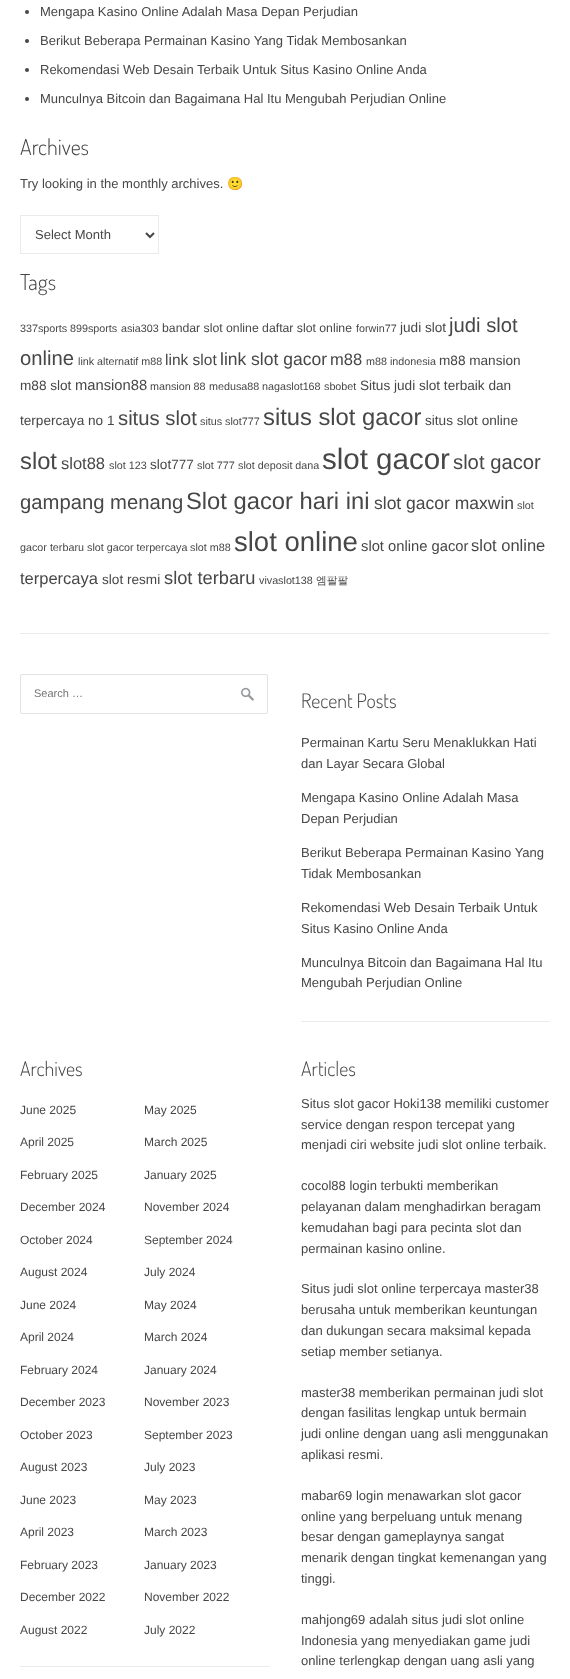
async function draw(canvas) {
  canvas.width = 570;
  canvas.height = 1679;
  const ctx = canvas.getContext('2d');
  ctx.miterLimit = 4;
  ctx.fontKerning = 'normal';
  function label(s, x, y, font, color) {
    ctx.font = font;
    ctx.fillStyle = color;
    ctx.fillText(s, x, y);
  }
  function rect(x, y, w, h, color) {
    ctx.fillStyle = color;
    ctx.fillRect(x, y, w, h);
  }
  async function image(src, x, y, w, h) {
    const img = new Image();
    img.src = src;
    await img.decode();
    ctx.drawImage(img, x, y, w, h);
  }
  let path;

  rect(0, 0, 570, 1679, '#fff');
  rect(20, 633, 530, 1, '#eaeaea');
  ctx.fillStyle = '#474747';
  ctx.beginPath();
  ctx.arc(27, 12, 2, 0, 2 * Math.PI);
  ctx.fill();
  label('Mengapa Kasino Online Adalah Masa Depan Perjudian', 40, 16, '13px Liberation Sans', '#474747');
  ctx.beginPath();
  ctx.arc(27, 41, 2, 0, 2 * Math.PI);
  ctx.fill();
  label('Berikut Beberapa Permainan Kasino Yang Tidak Membosankan', 40, 45, '13px Liberation Sans', '#474747');
  ctx.beginPath();
  ctx.arc(27, 70, 2, 0, 2 * Math.PI);
  ctx.fill();
  label('Rekomendasi Web Desain Terbaik Untuk Situs Kasino Online Anda', 40, 74, '13px Liberation Sans', '#474747');
  ctx.beginPath();
  ctx.arc(27, 99, 2, 0, 2 * Math.PI);
  ctx.fill();
  label('Munculnya Bitcoin dan Bagaimana Hal Itu Mengubah Perjudian Online', 40, 103, '13px Liberation Sans', '#474747');
  label('Archives', 20, 155, '300 22px Dosis', '#474747');
  label('Try looking in the monthly archives.', 20, 188, '13px Liberation Sans', '#474747');
  label('🙂', 227, 188, '13px Noto Color Emoji', '#474747');
  ctx.strokeStyle = '#eaeaea';
  ctx.strokeRect(20.5, 215.5, 138, 38);
  path = new Path2D('M146 233L150 237L154 233');
  ctx.strokeStyle = '#474747';
  ctx.lineWidth = 2;
  ctx.stroke(path);
  label('Select Month', 35, 239, '13px Liberation Sans', '#474747');
  label('Tags', 20, 290, '300 22px Dosis', '#474747');
  label('337sports', 20, 332, '10.75px Liberation Sans', '#474747');
  label('899sports', 70, 332, '10.75px Liberation Sans', '#474747');
  label('asia303', 121, 332, '10.75px Liberation Sans', '#474747');
  label('bandar slot online daftar slot online', 162, 332, '12.25px Liberation Sans', '#474747');
  label('forwin77', 356, 332, '10.75px Liberation Sans', '#474747');
  label('judi slot', 400, 332, '13.6px Liberation Sans', '#474747');
  label('judi slot', 449, 332, '20.25px Liberation Sans', '#474747');
  label('online', 20, 365, '20.25px Liberation Sans', '#474747');
  label('link alternatif m88', 78, 365, '10.75px Liberation Sans', '#474747');
  label('link slot', 165, 365, '15.5px Liberation Sans', '#474747');
  label('link slot gacor', 220, 365, '17.5px Liberation Sans', '#474747');
  label('m88', 330, 365, '16.5px Liberation Sans', '#474747');
  label('m88 indonesia', 366, 365, '10.75px Liberation Sans', '#474747');
  label('m88 mansion', 439, 365, '13.6px Liberation Sans', '#474747');
  label('m88 slot', 20, 390, '13.6px Liberation Sans', '#474747');
  label('mansion88', 75, 390, '14.75px Liberation Sans', '#474747');
  label('mansion 88', 150, 390, '10.75px Liberation Sans', '#474747');
  label('medusa88', 209, 390, '10.75px Liberation Sans', '#474747');
  label('nagaslot168', 262, 390, '10.75px Liberation Sans', '#474747');
  label('sbobet', 324, 390, '10.75px Liberation Sans', '#474747');
  label('Situs judi slot terbaik dan', 360, 390, '13.6px Liberation Sans', '#474747');
  label('terpercaya no 1', 20, 425, '13.6px Liberation Sans', '#474747');
  label('situs slot', 118, 425, '20.25px Liberation Sans', '#474747');
  label('situs slot777', 200, 425, '10.75px Liberation Sans', '#474747');
  label('situs slot gacor', 263, 425, '23.75px Liberation Sans', '#474747');
  label('situs slot online', 425, 425, '13.6px Liberation Sans', '#474747');
  label('slot', 20, 469, '23.75px Liberation Sans', '#474747');
  label('slot88', 61, 469, '16.5px Liberation Sans', '#474747');
  label('slot 123', 109, 469, '10.75px Liberation Sans', '#474747');
  label('slot777', 150, 469, '13.6px Liberation Sans', '#474747');
  label('slot 777', 197, 469, '10.75px Liberation Sans', '#474747');
  label('slot deposit dana', 238, 469, '10.75px Liberation Sans', '#474747');
  label('slot gacor', 322, 469, '29.5px Liberation Sans', '#474747');
  label('slot gacor', 453, 469, '20.25px Liberation Sans', '#474747');
  label('gampang menang', 20, 509, '20.25px Liberation Sans', '#474747');
  label('Slot gacor hari ini', 186, 509, '23.75px Liberation Sans', '#474747');
  label('slot gacor maxwin', 374, 509, '17.5px Liberation Sans', '#474747');
  label('slot', 517, 509, '10.75px Liberation Sans', '#474747');
  label('gacor terbaru', 20, 551, '10.75px Liberation Sans', '#474747');
  label('slot gacor terpercaya', 87, 551, '10.75px Liberation Sans', '#474747');
  label('slot m88', 190, 551, '10.75px Liberation Sans', '#474747');
  label('slot online', 234, 551, '27.5px Liberation Sans', '#474747');
  label('slot online gacor', 361, 551, '14.75px Liberation Sans', '#474747');
  label('slot online', 471, 551, '16.5px Liberation Sans', '#474747');
  label('terpercaya', 20, 584, '16.5px Liberation Sans', '#474747');
  label('slot resmi', 102, 584, '13.6px Liberation Sans', '#474747');
  label('slot terbaru', 164, 584, '18.25px Liberation Sans', '#474747');
  label('vivaslot138', 259, 584, '10.75px Liberation Sans', '#474747');
  label('엠팔팔', 316, 584, '500 10.75px WenQuanYi Zen Hei', '#474747');
  await image('assets/img1.png', 241, 687, 13, 14);
  ctx.beginPath();
  ctx.roundRect(20.5, 674.5, 247, 39, 1.5);
  ctx.strokeStyle = '#e2e2e2';
  ctx.lineWidth = 1;
  ctx.stroke();
  label('Search …', 34, 697, '11px Liberation Sans', '#757575');
  rect(301, 1021, 249, 1, '#eaeaea');
  label('Recent Posts', 301, 708, '300 20px Dosis', '#474747');
  label('Permainan Kartu Seru Menaklukkan Hati', 301, 747, '13px Liberation Sans', '#474747');
  label('dan Layar Secara Global', 301, 768, '13px Liberation Sans', '#474747');
  label('Mengapa Kasino Online Adalah Masa', 301, 802, '13px Liberation Sans', '#474747');
  label('Depan Perjudian', 301, 823, '13px Liberation Sans', '#474747');
  label('Berikut Beberapa Permainan Kasino Yang', 301, 857, '13px Liberation Sans', '#474747');
  label('Tidak Membosankan', 301, 878, '13px Liberation Sans', '#474747');
  label('Rekomendasi Web Desain Terbaik Untuk', 301, 912, '13px Liberation Sans', '#474747');
  label('Situs Kasino Online Anda', 301, 933, '13px Liberation Sans', '#474747');
  label('Munculnya Bitcoin dan Bagaimana Hal Itu', 301, 967, '13px Liberation Sans', '#474747');
  label('Mengubah Perjudian Online', 301, 987, '13px Liberation Sans', '#474747');
  rect(20, 1666, 249, 1, '#eaeaea');
  label('Archives', 20, 1076, '300 20px Dosis', '#474747');
  label('June 2025', 20, 1114, '12px Liberation Sans', '#474747');
  label('May 2025', 144, 1114, '12px Liberation Sans', '#474747');
  label('April 2025', 20, 1146, '12px Liberation Sans', '#474747');
  label('March 2025', 144, 1146, '12px Liberation Sans', '#474747');
  label('February 2025', 20, 1179, '12px Liberation Sans', '#474747');
  label('January 2025', 144, 1179, '12px Liberation Sans', '#474747');
  label('December 2024', 20, 1211, '12px Liberation Sans', '#474747');
  label('November 2024', 144, 1211, '12px Liberation Sans', '#474747');
  label('October 2024', 20, 1244, '12px Liberation Sans', '#474747');
  label('September 2024', 144, 1244, '12px Liberation Sans', '#474747');
  label('August 2024', 20, 1276, '12px Liberation Sans', '#474747');
  label('July 2024', 144, 1276, '12px Liberation Sans', '#474747');
  label('June 2024', 20, 1309, '12px Liberation Sans', '#474747');
  label('May 2024', 144, 1309, '12px Liberation Sans', '#474747');
  label('April 2024', 20, 1341, '12px Liberation Sans', '#474747');
  label('March 2024', 144, 1341, '12px Liberation Sans', '#474747');
  label('February 2024', 20, 1374, '12px Liberation Sans', '#474747');
  label('January 2024', 144, 1374, '12px Liberation Sans', '#474747');
  label('December 2023', 20, 1406, '12px Liberation Sans', '#474747');
  label('November 2023', 144, 1406, '12px Liberation Sans', '#474747');
  label('October 2023', 20, 1439, '12px Liberation Sans', '#474747');
  label('September 2023', 144, 1439, '12px Liberation Sans', '#474747');
  label('August 2023', 20, 1471, '12px Liberation Sans', '#474747');
  label('July 2023', 144, 1471, '12px Liberation Sans', '#474747');
  label('June 2023', 20, 1504, '12px Liberation Sans', '#474747');
  label('May 2023', 144, 1504, '12px Liberation Sans', '#474747');
  label('April 2023', 20, 1536, '12px Liberation Sans', '#474747');
  label('March 2023', 144, 1536, '12px Liberation Sans', '#474747');
  label('February 2023', 20, 1569, '12px Liberation Sans', '#474747');
  label('January 2023', 144, 1569, '12px Liberation Sans', '#474747');
  label('December 2022', 20, 1601, '12px Liberation Sans', '#474747');
  label('November 2022', 144, 1601, '12px Liberation Sans', '#474747');
  label('August 2022', 20, 1634, '12px Liberation Sans', '#474747');
  label('July 2022', 144, 1634, '12px Liberation Sans', '#474747');
  label('Articles', 301, 1076, '300 20px Dosis', '#474747');
  label('Situs slot gacor Hoki138 memiliki customer', 301, 1108, '13px Liberation Sans', '#474747');
  label('service dengan respon tercepat yang', 301, 1129, '13px Liberation Sans', '#474747');
  label('menjadi ciri website judi slot online terbaik.', 301, 1149, '13px Liberation Sans', '#474747');
  label('cocol88 login terbukti memberikan', 301, 1190, '13px Liberation Sans', '#474747');
  label('pelayanan dalam menghadirkan beragam', 301, 1211, '13px Liberation Sans', '#474747');
  label('kemudahan bagi para pecinta slot dan', 301, 1232, '13px Liberation Sans', '#474747');
  label('permainan kasino online.', 301, 1253, '13px Liberation Sans', '#474747');
  label('Situs judi slot online terpercaya master38', 301, 1293, '13px Liberation Sans', '#474747');
  label('berusaha untuk memberikan keuntungan', 301, 1314, '13px Liberation Sans', '#474747');
  label('dan dukungan secara maksimal kepada', 301, 1335, '13px Liberation Sans', '#474747');
  label('setiap member setianya.', 301, 1356, '13px Liberation Sans', '#474747');
  label('master38 memberikan permainan judi slot', 301, 1397, '13px Liberation Sans', '#474747');
  label('dengan fasilitas lengkap untuk bermain', 301, 1417, '13px Liberation Sans', '#474747');
  label('judi online dengan uang asli menggunakan', 301, 1438, '13px Liberation Sans', '#474747');
  label('aplikasi resmi.', 301, 1459, '13px Liberation Sans', '#474747');
  label('mabar69 login menawarkan slot gacor', 301, 1500, '13px Liberation Sans', '#474747');
  label('online yang berpeluang untuk menang', 301, 1521, '13px Liberation Sans', '#474747');
  label('besar dengan gameplaynya sangat', 301, 1541, '13px Liberation Sans', '#474747');
  label('menarik dengan tingkat kemenangan yang', 301, 1562, '13px Liberation Sans', '#474747');
  label('tinggi.', 301, 1583, '13px Liberation Sans', '#474747');
  label('mahjong69 adalah situs judi slot online', 301, 1624, '13px Liberation Sans', '#474747');
  label('Indonesia yang menyediakan game judi', 301, 1645, '13px Liberation Sans', '#474747');
  label('online terlengkap dengan uang asli yang', 301, 1665, '13px Liberation Sans', '#474747');
}

draw(document.querySelector('canvas'));
